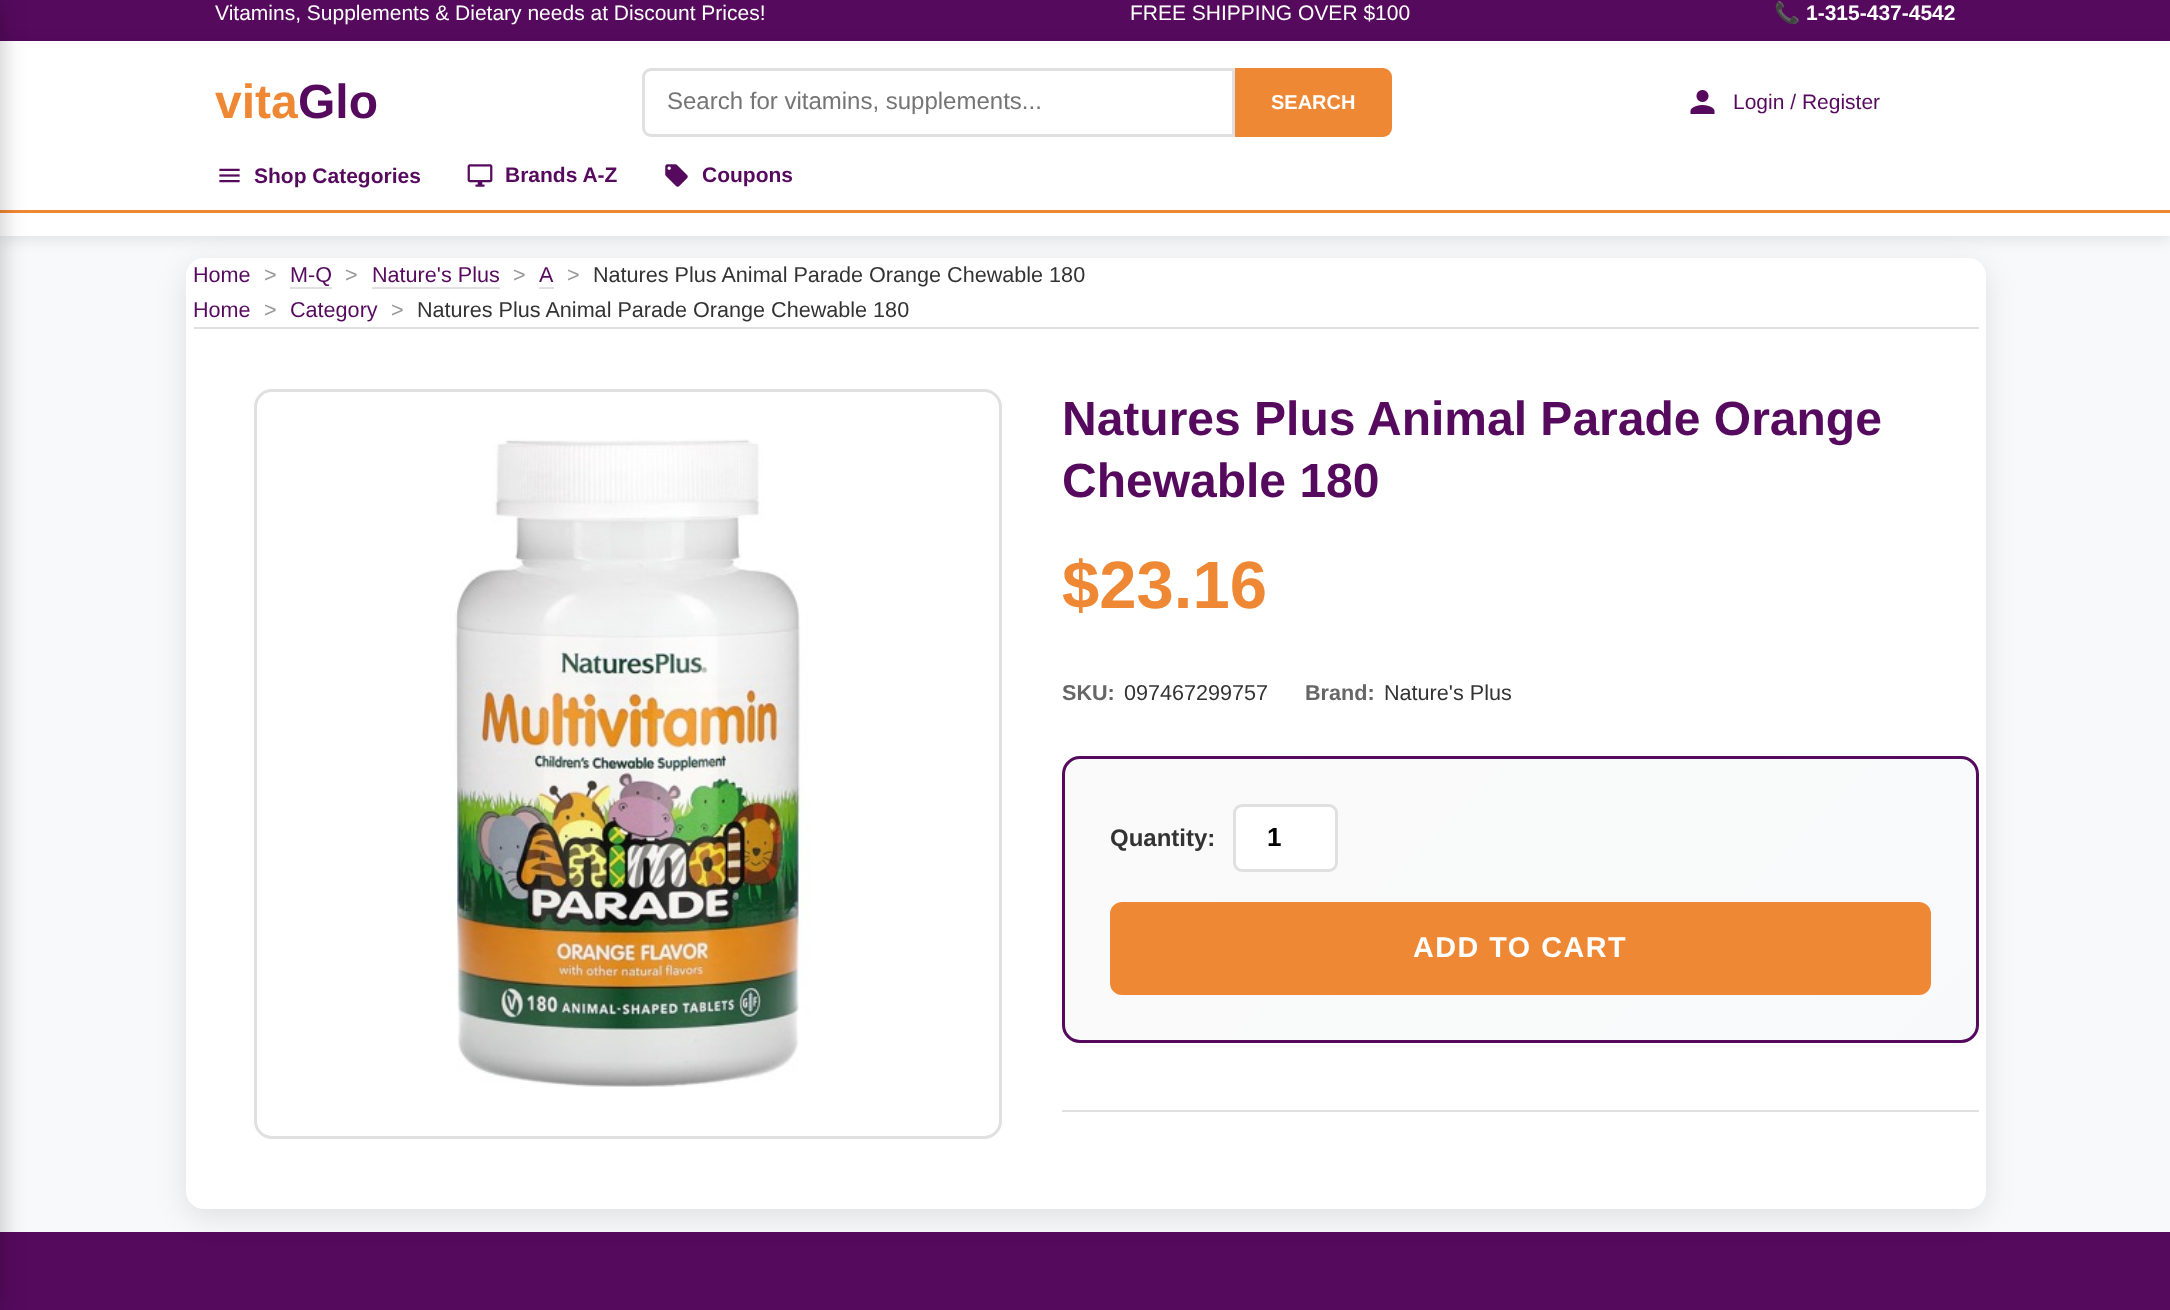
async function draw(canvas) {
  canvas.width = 2170;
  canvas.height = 1310;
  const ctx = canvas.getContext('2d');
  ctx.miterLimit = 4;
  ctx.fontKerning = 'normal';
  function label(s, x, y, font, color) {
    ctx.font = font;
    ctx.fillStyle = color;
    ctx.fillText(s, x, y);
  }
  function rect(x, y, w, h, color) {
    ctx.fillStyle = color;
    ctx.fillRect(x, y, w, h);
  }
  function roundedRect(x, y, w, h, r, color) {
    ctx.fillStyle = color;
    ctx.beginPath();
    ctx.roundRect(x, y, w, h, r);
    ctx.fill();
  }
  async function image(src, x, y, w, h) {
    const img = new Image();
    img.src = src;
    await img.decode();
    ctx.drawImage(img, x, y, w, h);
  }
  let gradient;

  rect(0, 0, 2170, 1310, '#f8f9fa');
  rect(0, 0, 2170, 41, '#560a5e');
  ctx.fillStyle = '#0000001a';
  ctx.filter = 'blur(7.5px)';
  ctx.beginPath();
  ctx.rect(0, 44, 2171, 195);
  ctx.fill();
  ctx.filter = 'none';
  rect(0, 41, 2170, 195, '#fff');
  rect(0, 210, 2170, 3, '#ef8834');
  rect(0, 1232, 2170, 78, '#560a5e');
  ctx.fillStyle = '#00000033';
  ctx.filter = 'blur(11px)';
  ctx.beginPath();
  ctx.rect(-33, 0, 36, 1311);
  ctx.fill();
  ctx.filter = 'none';
  label('Vitamins, Supplements & Dietary needs at Discount Prices!', 215, 20, '21px Liberation Sans', '#fff');
  label('FREE SHIPPING OVER $100', 1130, 20, '21px Liberation Sans', '#fff');
  label('📞', 1774, 20, 'bold 21px Noto Color Emoji', '#fff');
  label('1-315-437-4542', 1806, 20, 'bold 21px Liberation Sans', '#fff');
  label('vita', 215, 118, 'bold 48px Liberation Sans', '#ef8834');
  label('Glo', 298, 118, 'bold 48px Liberation Sans', '#560a5e');
  ctx.beginPath();
  ctx.roundRect(643.5, 69.5, 590, 66, [7.5, 0, 0, 7.5]);
  ctx.strokeStyle = '#e0e0e0';
  ctx.lineWidth = 3;
  ctx.stroke();
  label('Search for vitamins, supplements...', 667, 109, '24px Liberation Sans', '#757575');
  ctx.fillStyle = '#ef8834';
  ctx.beginPath();
  ctx.roundRect(1235, 68, 157, 69, [0, 9, 9, 0]);
  ctx.fill();
  label('SEARCH', 1271, 109, 'bold 20px Liberation Sans', '#fff');
  await image('assets/img1.png', 1690, 90, 25, 24);
  label('Login / Register', 1733, 109, '21px Liberation Sans', '#560a5e');
  await image('assets/img2.png', 219, 168, 21, 15);
  label('Shop Categories', 254, 183, 'bold 21px Liberation Sans', '#560a5e');
  await image('assets/img3.png', 467, 164, 26, 23);
  label('Brands A-Z', 505, 182, 'bold 21px Liberation Sans', '#560a5e');
  await image('assets/img4.png', 665, 164, 23, 23);
  label('Coupons', 702, 182, 'bold 21px Liberation Sans', '#560a5e');
  ctx.fillStyle = '#0000001a';
  ctx.filter = 'blur(15px)';
  ctx.beginPath();
  ctx.roundRect(186, 266, 1800, 951, 18);
  ctx.fill();
  ctx.filter = 'none';
  roundedRect(186, 258, 1800, 951, 18, '#fff');
  rect(194, 327, 1785, 2, '#e0e0e0');
  label('Home', 193, 282, '21.6px Liberation Sans', '#560a5e');
  label('>', 264, 282, '21.6px Liberation Sans', '#999');
  label('M-Q', 290, 282, '21.6px Liberation Sans', '#560a5e');
  rect(290, 287, 42, 2, '#e0e0e0');
  label('>', 345, 282, '21.6px Liberation Sans', '#999');
  label('Nature\'s Plus', 372, 282, '21.6px Liberation Sans', '#560a5e');
  rect(372, 287, 128, 2, '#e0e0e0');
  label('>', 513, 282, '21.6px Liberation Sans', '#999');
  label('A', 539, 282, '21.6px Liberation Sans', '#560a5e');
  rect(539, 287, 15, 2, '#e0e0e0');
  label('>', 567, 282, '21.6px Liberation Sans', '#999');
  label('Natures Plus Animal Parade Orange Chewable 180', 593, 282, '21.6px Liberation Sans', '#333');
  label('Home', 193, 317, '21.6px Liberation Sans', '#560a5e');
  label('>', 264, 317, '21.6px Liberation Sans', '#999');
  label('Category', 290, 317, '21.6px Liberation Sans', '#560a5e');
  label('>', 391, 317, '21.6px Liberation Sans', '#999');
  label('Natures Plus Animal Parade Orange Chewable 180', 417, 317, '21.6px Liberation Sans', '#333');
  ctx.beginPath();
  ctx.roundRect(255.5, 390.5, 745, 747, 16.5);
  ctx.stroke();
  await image('assets/img5.png', 449, 439, 361, 648);
  label('Natures Plus Animal Parade Orange', 1062, 435, 'bold 48px Liberation Sans', '#560a5e');
  label('Chewable 180', 1062, 497, 'bold 48px Liberation Sans', '#560a5e');
  label('$23.16', 1062, 608, 'bold 67px Liberation Sans', '#ef8834');
  label('SKU:', 1062, 700, 'bold 21.6px Liberation Sans', '#666');
  label('097467299757', 1124, 700, '21.6px Liberation Sans', '#333');
  label('Brand:', 1305, 700, 'bold 21.6px Liberation Sans', '#666');
  label('Nature\'s Plus', 1384, 700, '21.6px Liberation Sans', '#333');
  ctx.save();
  ctx.beginPath();
  ctx.roundRect(1062, 756, 917, 287, 18);
  ctx.clip();
  gradient = ctx.createLinearGradient(1223, 602, 1818, 1197);
  gradient.addColorStop(0, '#fafafa');
  gradient.addColorStop(1, '#f8f9fa');
  ctx.fillStyle = gradient;
  ctx.fillRect(1065, 759, 911, 281);
  ctx.restore();
  ctx.beginPath();
  ctx.roundRect(1063.5, 757.5, 914, 284, 16.5);
  ctx.strokeStyle = '#560a5e';
  ctx.stroke();
  label('Quantity:', 1110, 846, 'bold 24px Liberation Sans', '#333');
  ctx.fillStyle = '#fff';
  ctx.beginPath();
  ctx.roundRect(1234.5, 805.5, 102, 65, 7.5);
  ctx.fill();
  ctx.strokeStyle = '#e0e0e0';
  ctx.stroke();
  label('1', 1267, 846, 'bold 26px Liberation Sans', '#000');
  roundedRect(1110, 902, 821, 93, 12, '#ef8834');
  ctx.letterSpacing = '1.5px';
  label('ADD TO CART', 1413, 957, 'bold 28.75px Liberation Sans', '#fff');
  rect(1062, 1110, 917, 2, '#e0e0e0');
}

draw(document.querySelector('canvas'));
